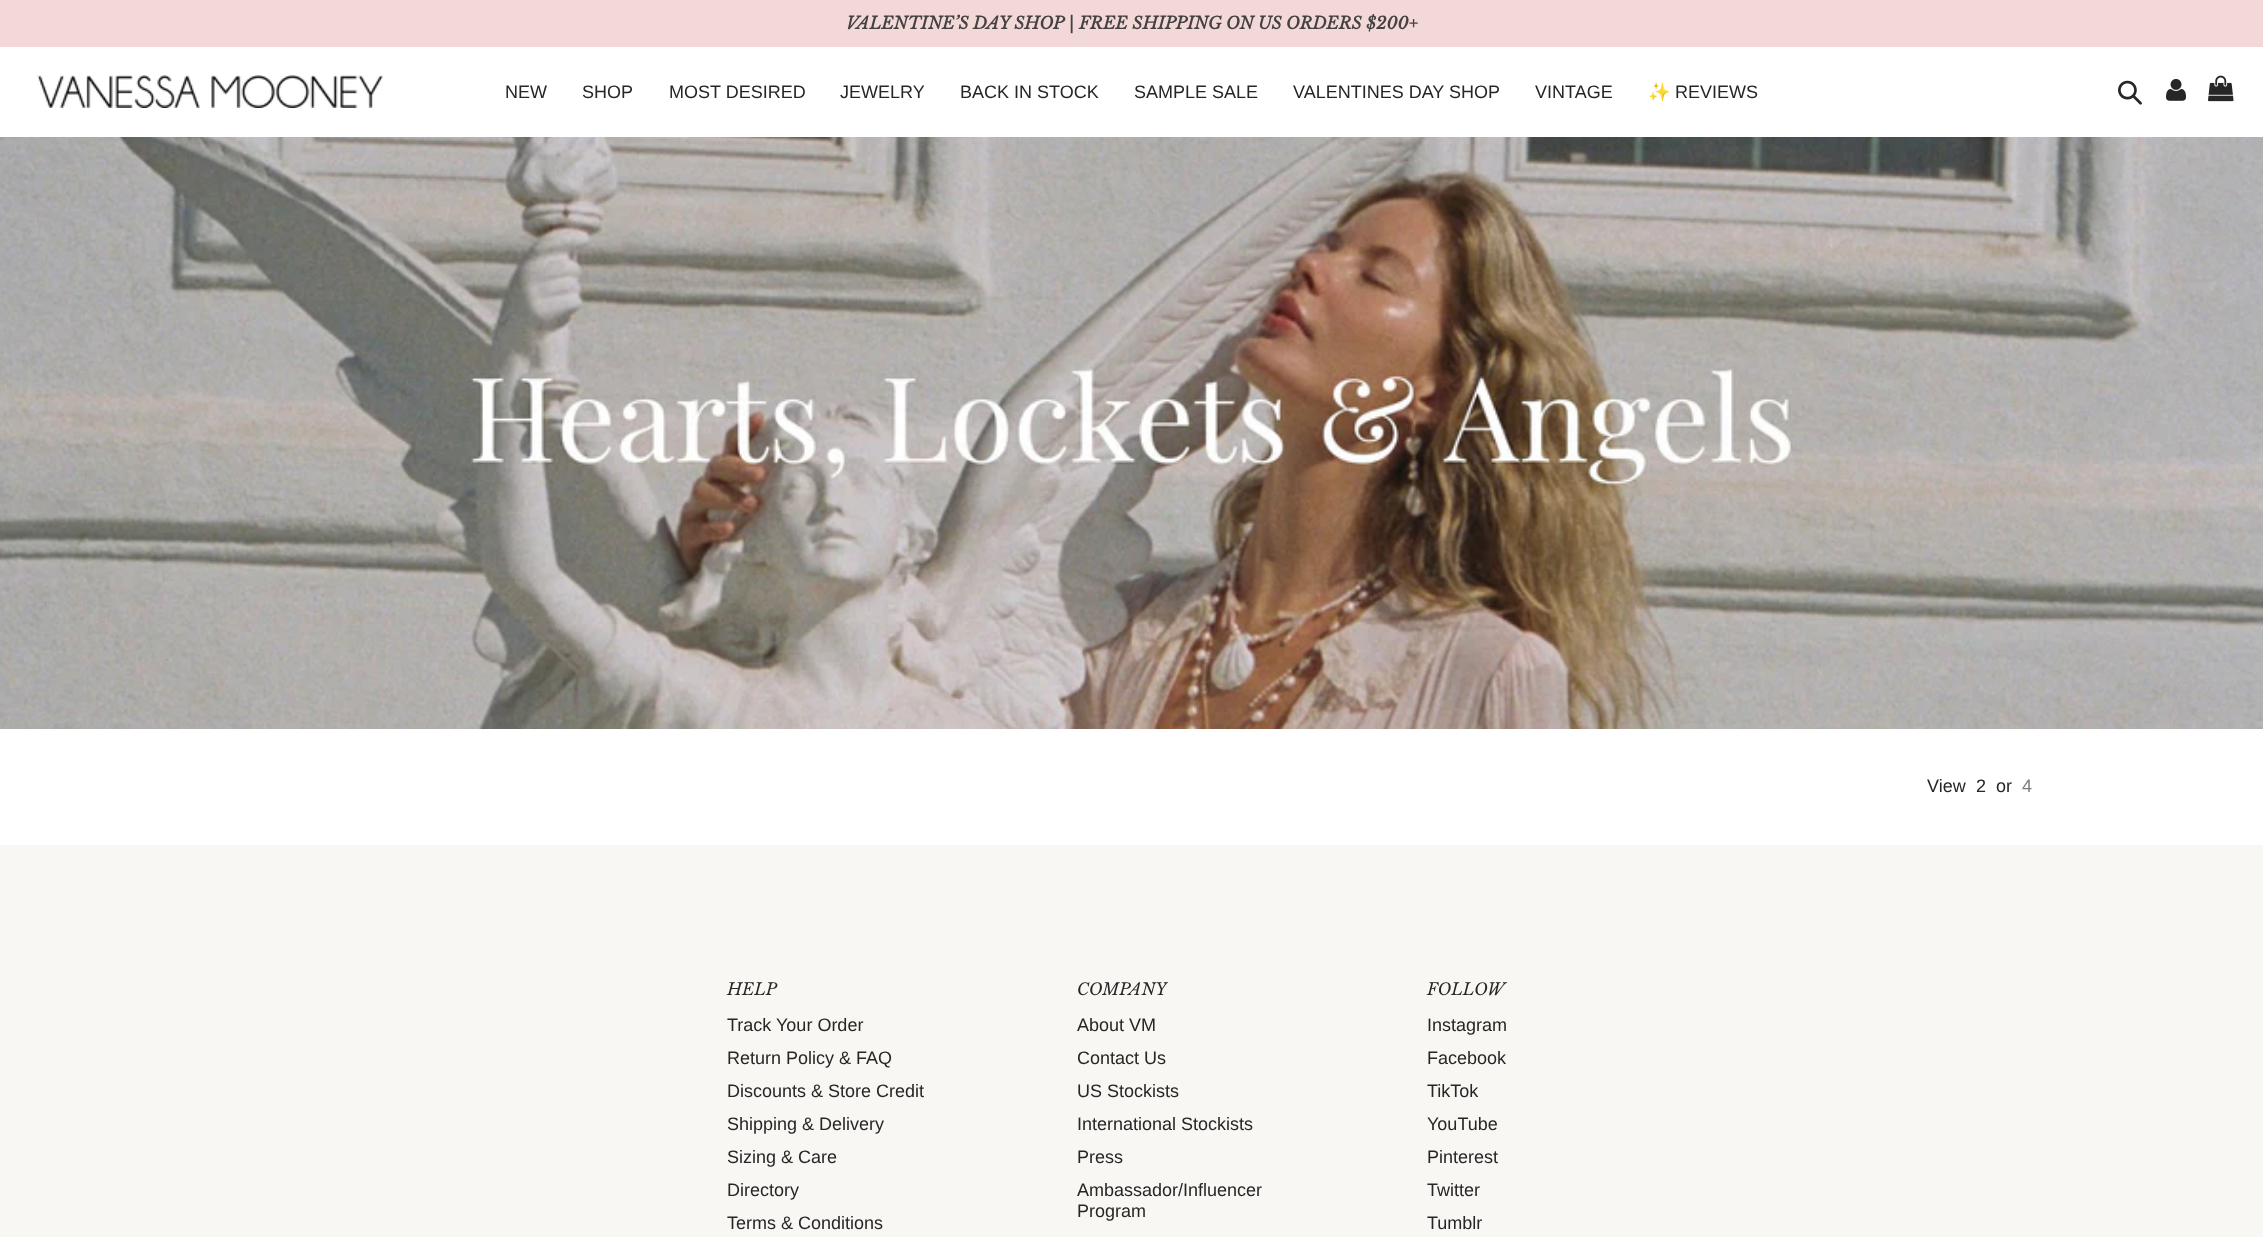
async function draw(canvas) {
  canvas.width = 2263;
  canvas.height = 1237;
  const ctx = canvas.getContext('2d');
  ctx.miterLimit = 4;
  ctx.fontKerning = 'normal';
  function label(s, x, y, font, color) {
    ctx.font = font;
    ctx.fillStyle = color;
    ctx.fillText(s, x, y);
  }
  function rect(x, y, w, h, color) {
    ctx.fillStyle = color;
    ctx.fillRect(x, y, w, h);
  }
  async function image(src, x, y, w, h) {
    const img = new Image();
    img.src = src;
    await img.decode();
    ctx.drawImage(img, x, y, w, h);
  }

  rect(0, 0, 2263, 1237, '#fff');
  rect(0, 0, 2263, 47, '#f3d8d8');
  label('VALENTINE’S DAY SHOP | FREE SHIPPING ON US ORDERS $200+', 846, 29, 'italic bold 16.8px Libre Baskerville', '#454141');
  await image('assets/img1.png', 37, 75, 346, 33);
  label('NEW', 505, 98, '18px Liberation Sans', '#262626');
  label('SHOP', 582, 98, '18px Liberation Sans', '#262626');
  label('MOST DESIRED', 669, 98, '18px Liberation Sans', '#262626');
  label('JEWELRY', 840, 98, '18px Liberation Sans', '#262626');
  label('BACK IN STOCK', 960, 98, '18px Liberation Sans', '#262626');
  label('SAMPLE SALE', 1134, 98, '18px Liberation Sans', '#262626');
  label('VALENTINES DAY SHOP', 1293, 98, '18px Liberation Sans', '#262626');
  label('VINTAGE', 1535, 98, '18px Liberation Sans', '#262626');
  label('✨', 1648, 98, '18px Noto Color Emoji', '#262626');
  label('REVIEWS', 1675, 98, '18px Liberation Sans', '#262626');
  await image('assets/img2.png', 2118, 80, 24, 25);
  await image('assets/img3.png', 2166, 79, 20, 22);
  await image('assets/img4.png', 2208, 75, 26, 27);
  await image('assets/img5.png', 0, 137, 2263, 592);
  label('View', 1927, 792, '18px Liberation Sans', '#262626');
  label('2', 1976, 792, '18px Liberation Sans', '#262626');
  label('or', 1996, 792, '18px Liberation Sans', '#262626');
  label('4', 2022, 792, '18px Liberation Sans', '#7d7d7d');
  rect(0, 845, 2263, 392, '#f9f7f3');
  label('HELP', 727, 995, 'italic 16.5px Libre Baskerville', '#262626');
  label('Track Your Order', 727, 1031, '18px Liberation Sans', '#262626');
  label('Return Policy & FAQ', 727, 1064, '18px Liberation Sans', '#262626');
  label('Discounts & Store Credit', 727, 1097, '18px Liberation Sans', '#262626');
  label('Shipping & Delivery', 727, 1130, '18px Liberation Sans', '#262626');
  label('Sizing & Care', 727, 1163, '18px Liberation Sans', '#262626');
  label('Directory', 727, 1196, '18px Liberation Sans', '#262626');
  label('Terms & Conditions', 727, 1229, '18px Liberation Sans', '#262626');
  label('COMPANY', 1077, 995, 'italic 16.5px Libre Baskerville', '#262626');
  label('About VM', 1077, 1031, '18px Liberation Sans', '#262626');
  label('Contact Us', 1077, 1064, '18px Liberation Sans', '#262626');
  label('US Stockists', 1077, 1097, '18px Liberation Sans', '#262626');
  label('International Stockists', 1077, 1130, '18px Liberation Sans', '#262626');
  label('Press', 1077, 1163, '18px Liberation Sans', '#262626');
  label('Ambassador/Influencer', 1077, 1196, '18px Liberation Sans', '#262626');
  label('Program', 1077, 1217, '18px Liberation Sans', '#262626');
  label('FOLLOW', 1427, 995, 'italic 16.5px Libre Baskerville', '#262626');
  label('Instagram', 1427, 1031, '18px Liberation Sans', '#262626');
  label('Facebook', 1427, 1064, '18px Liberation Sans', '#262626');
  label('TikTok', 1427, 1097, '18px Liberation Sans', '#262626');
  label('YouTube', 1427, 1130, '18px Liberation Sans', '#262626');
  label('Pinterest', 1427, 1163, '18px Liberation Sans', '#262626');
  label('Twitter', 1427, 1196, '18px Liberation Sans', '#262626');
  label('Tumblr', 1427, 1229, '18px Liberation Sans', '#262626');
}

draw(document.querySelector('canvas'));
